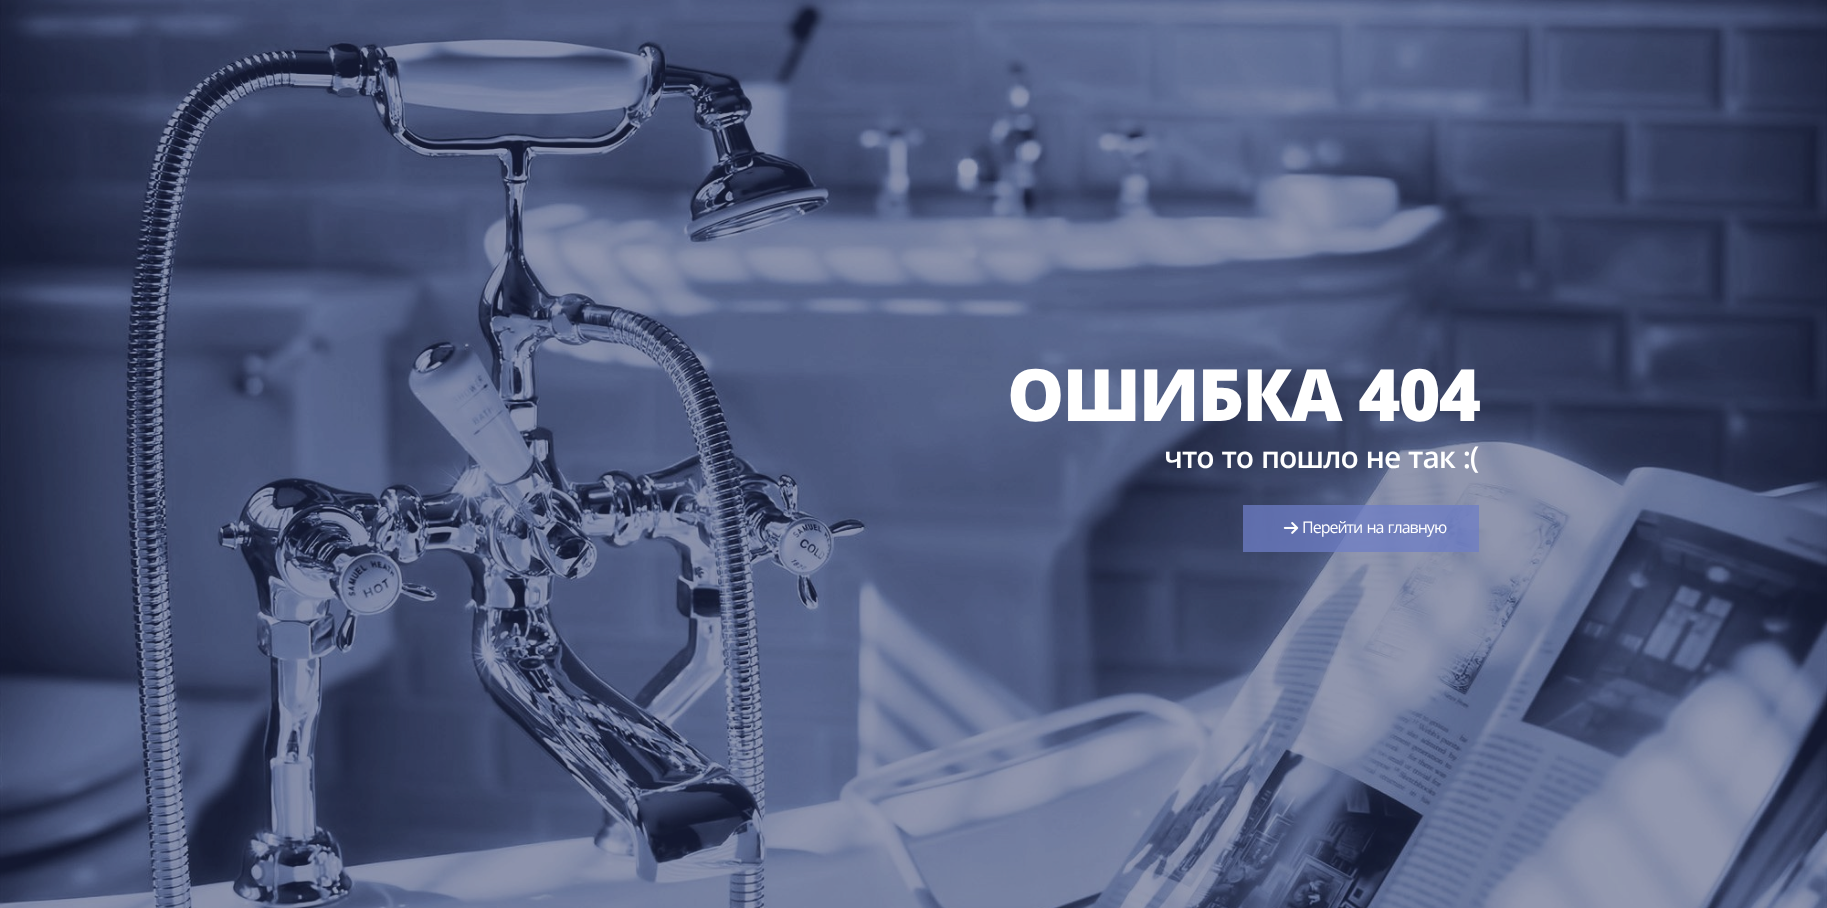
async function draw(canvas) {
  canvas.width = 1827;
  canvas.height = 908;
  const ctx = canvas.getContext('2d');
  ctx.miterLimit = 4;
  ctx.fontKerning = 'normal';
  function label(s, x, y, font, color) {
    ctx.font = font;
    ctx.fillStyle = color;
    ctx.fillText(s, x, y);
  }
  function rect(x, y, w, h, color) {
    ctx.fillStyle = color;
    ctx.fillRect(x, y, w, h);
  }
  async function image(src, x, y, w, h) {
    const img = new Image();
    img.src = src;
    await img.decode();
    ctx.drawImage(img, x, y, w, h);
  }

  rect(0, 0, 1827, 908, '#fff');
  await image('assets/img1.png', 0, 0, 1827, 908);
  ctx.letterSpacing = '-2px';
  ctx.wordSpacing = '1px';
  label('ОШИБКА 404', 1007, 421, '800 72px Open Sans', '#fff');
  ctx.letterSpacing = '-1px';
  label('что то пошло не так :(', 1164, 468, '600 30px Open Sans', '#fff');
  rect(1243, 505, 236, 47, '#6d7ec5bf');
  await image('assets/img2.png', 1283, 522, 16, 12);
  label('Перейти на главную', 1302, 533, '16px Open Sans', '#fff');
}

draw(document.querySelector('canvas'));
